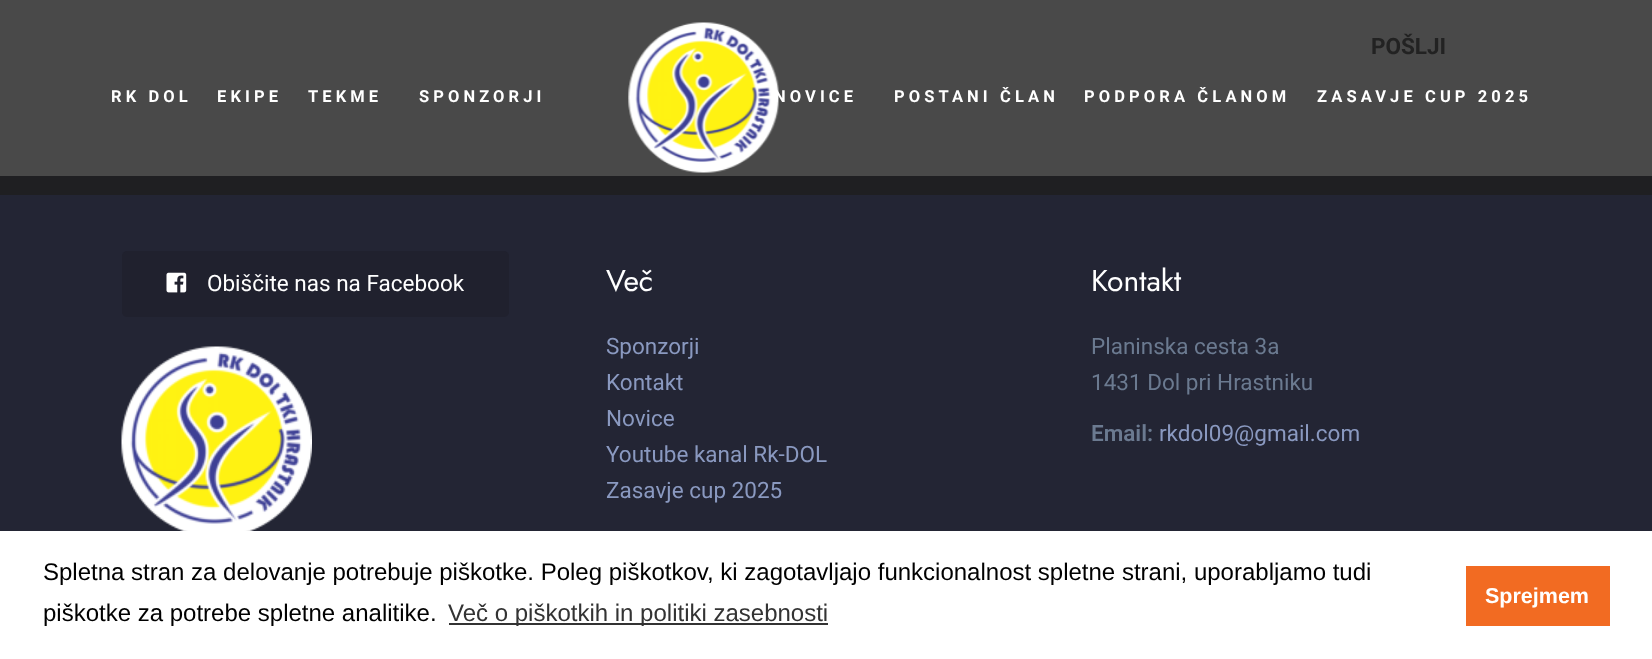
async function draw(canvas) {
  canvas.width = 1652;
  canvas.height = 659;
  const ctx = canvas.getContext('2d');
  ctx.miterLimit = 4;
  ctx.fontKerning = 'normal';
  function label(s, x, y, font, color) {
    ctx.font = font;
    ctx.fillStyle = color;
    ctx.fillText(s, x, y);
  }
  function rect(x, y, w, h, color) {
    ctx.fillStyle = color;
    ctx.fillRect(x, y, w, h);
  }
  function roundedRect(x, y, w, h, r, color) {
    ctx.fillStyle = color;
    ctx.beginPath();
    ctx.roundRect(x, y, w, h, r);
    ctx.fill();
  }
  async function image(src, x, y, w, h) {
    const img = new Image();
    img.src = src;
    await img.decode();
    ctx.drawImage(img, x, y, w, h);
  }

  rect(0, 0, 1652, 659, '#494949');
  label('POŠLJI', 1371, 54, 'bold 22.5px Roboto', '#222');
  await image('assets/img1.png', 628, 22, 151, 151);
  ctx.letterSpacing = '4.1px';
  label('RK DOL', 111, 102, 'bold 16.5px Roboto', '#fff');
  label('EKIPE', 217, 102, 'bold 16.5px Roboto', '#fff');
  label('TEKME', 308, 102, 'bold 16.5px Roboto', '#fff');
  label('SPONZORJI', 419, 102, 'bold 16.5px Roboto', '#fff');
  label('NOVICE', 774, 102, 'bold 16.5px Roboto', '#fff');
  label('POSTANI ČLAN', 894, 102, 'bold 16.5px Roboto', '#fff');
  label('PODPORA ČLANOM', 1084, 102, 'bold 16.5px Roboto', '#fff');
  label('ZASAVJE CUP 2025', 1317, 102, 'bold 16.5px Roboto', '#fff');
  rect(0, 195, 1652, 336, '#232534');
  rect(0, 176, 1652, 19, '#1f1f22');
  roundedRect(122, 251, 387, 66, 5, '#20212e');
  await image('assets/img2.png', 166, 272, 21, 21);
  ctx.letterSpacing = '0px';
  label('Obiščite nas na Facebook', 207, 291, '22.5px Roboto', '#fff');
  await image('assets/img3.png', 121, 346, 191, 185);
  label('Več', 606, 291, '30px Jost', '#fff');
  label('Sponzorji', 606, 354, '22.5px Roboto', '#8a99c0');
  label('Kontakt', 606, 390, '22.5px Roboto', '#8a99c0');
  label('Novice', 606, 426, '22.5px Roboto', '#8a99c0');
  label('Youtube kanal Rk-DOL', 606, 462, '22.5px Roboto', '#8a99c0');
  label('Zasavje cup 2025', 606, 498, '22.5px Roboto', '#8a99c0');
  label('Kontakt', 1091, 291, '30px Jost', '#fff');
  label('Planinska cesta 3a', 1091, 354, '22.5px Roboto', '#6b7a90');
  label('1431 Dol pri Hrastniku', 1091, 390, '22.5px Roboto', '#6b7a90');
  label('Email:', 1091, 441, '600 22.5px Roboto', '#6b7a90');
  label('rkdol09@gmail.com', 1159, 441, '22.5px Roboto', '#8a99c0');
  rect(0, 531, 1652, 128, '#fff');
  label('Spletna stran za delovanje potrebuje piškotke. Poleg piškotkov, ki zagotavljajo funkcionalnost spletne strani, uporabljamo tudi', 43, 580, '24px Liberation Sans', '#000');
  label('piškotke za potrebe spletne analitike.', 43, 621, '24px Liberation Sans', '#000');
  rect(449, 623, 379, 2, '#333');
  label('Več o piškotkih in politiki zasebnosti', 448, 621, '24px Liberation Sans', '#333');
  rect(1466, 566, 144, 60, '#f26b22');
  label('Sprejmem', 1485, 603, 'bold 21.5px Liberation Sans', '#fff');
}

draw(document.querySelector('canvas'));
